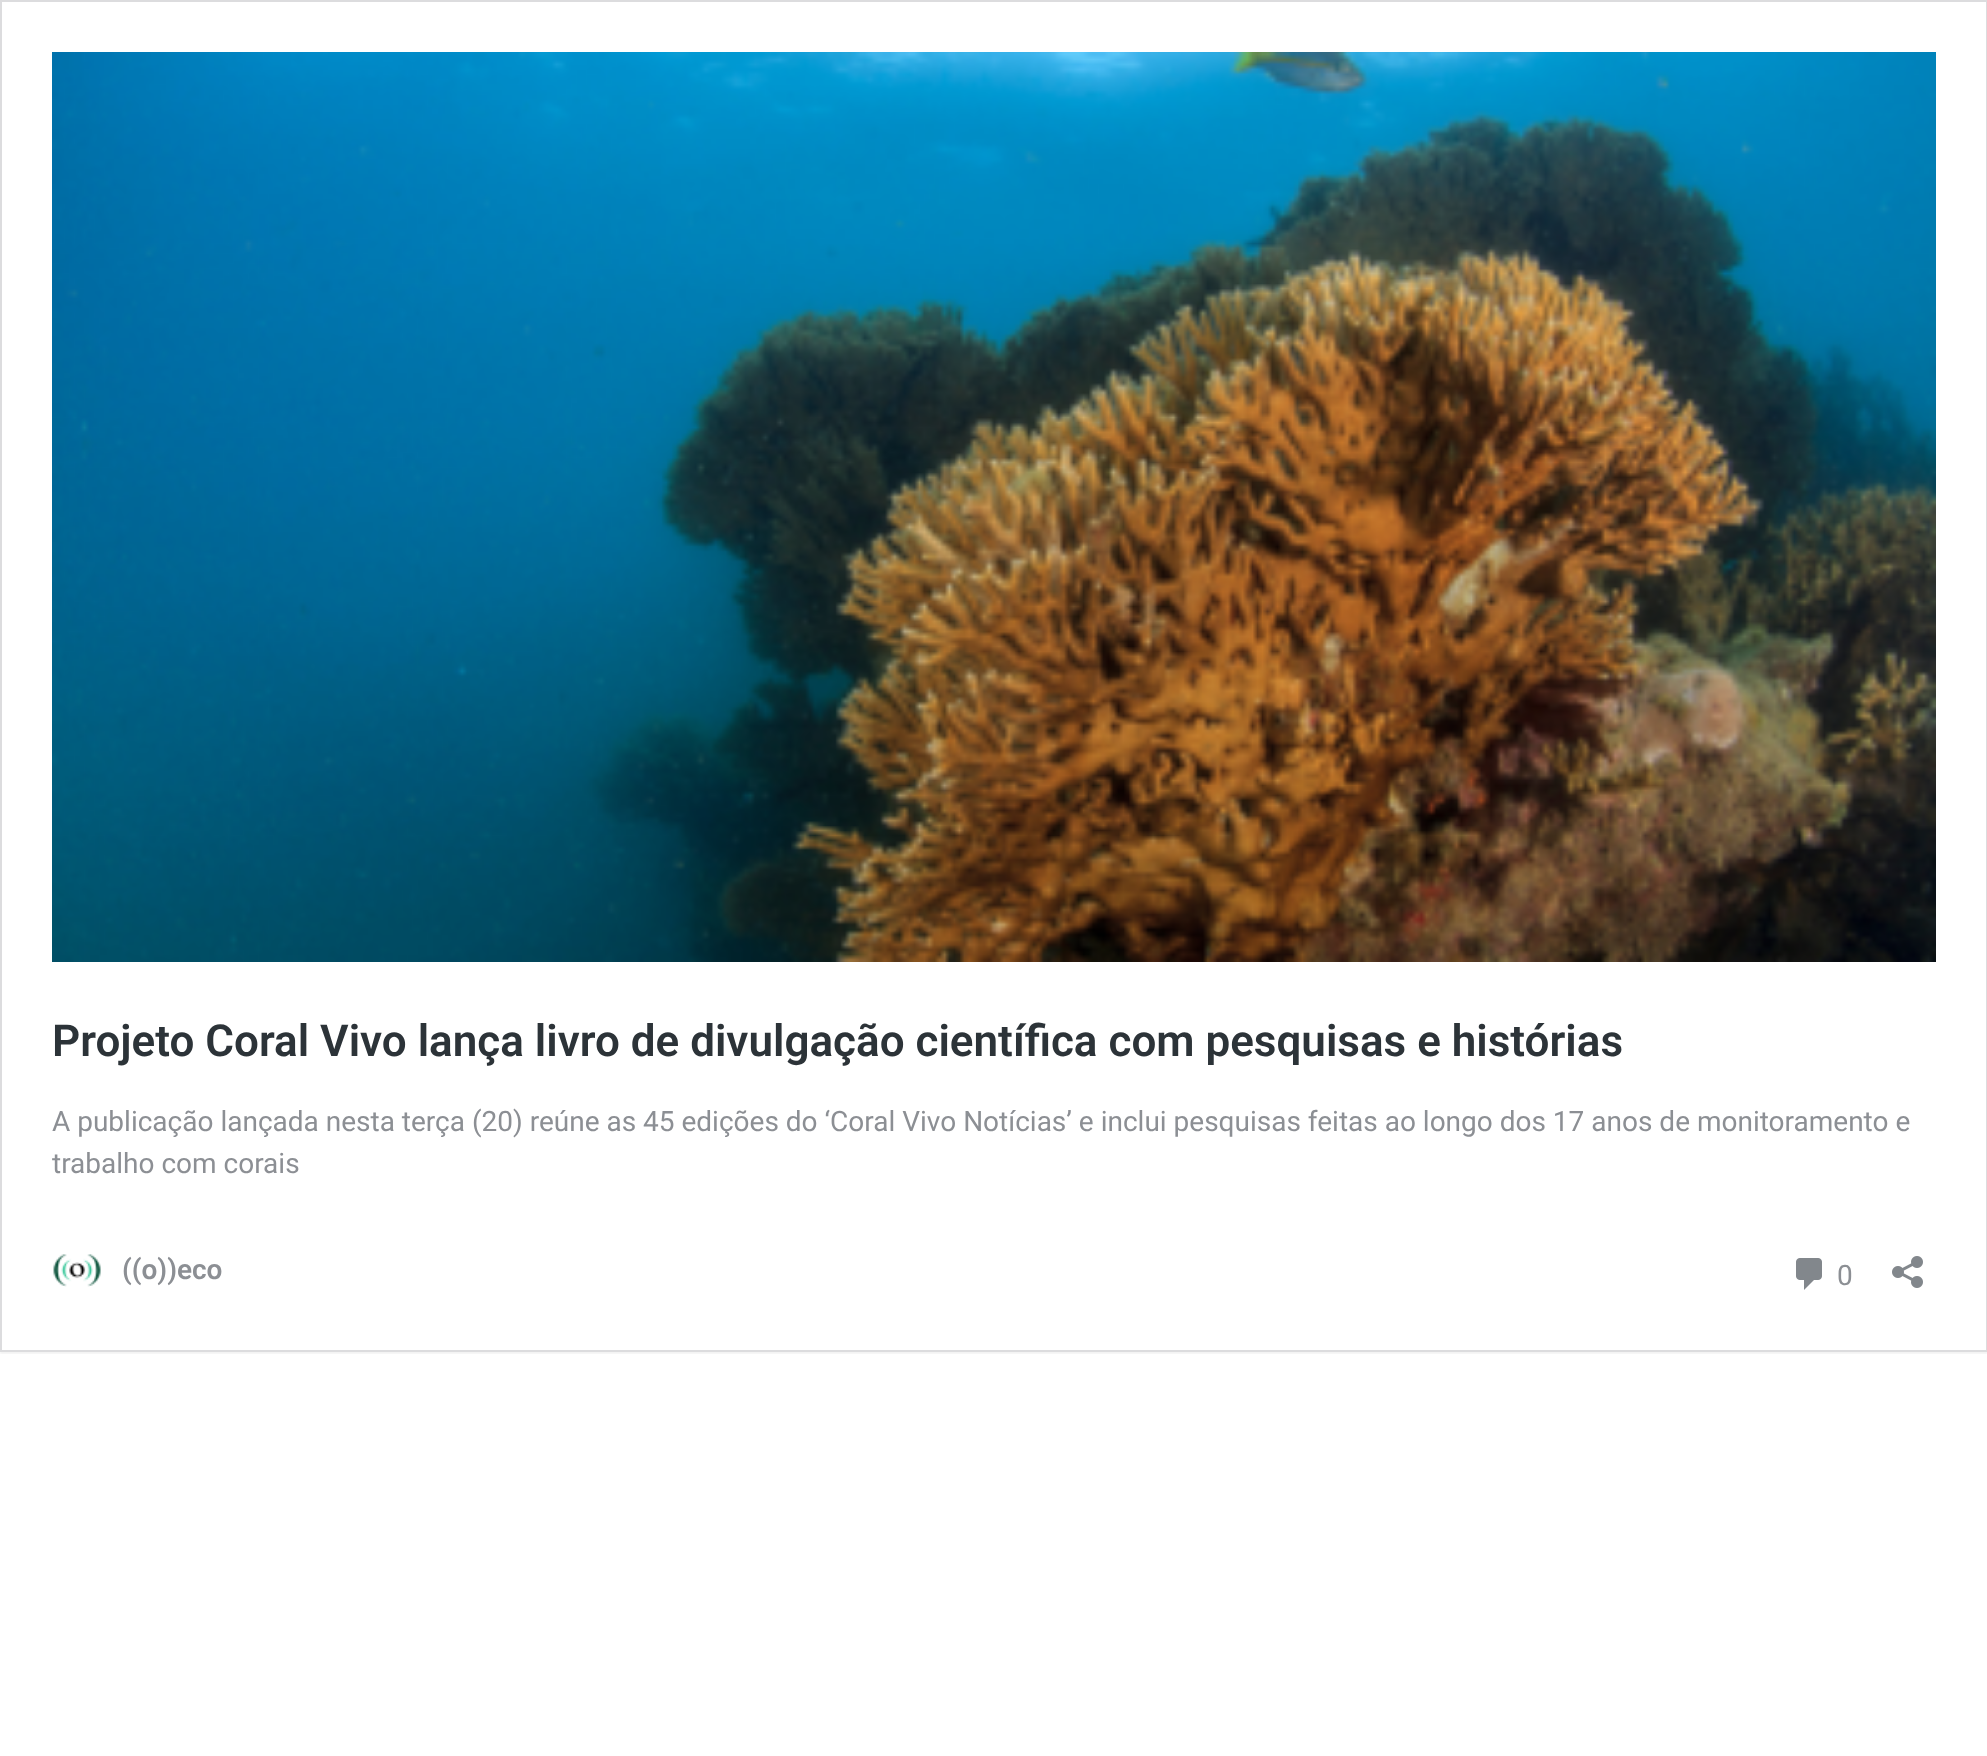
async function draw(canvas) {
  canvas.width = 1987;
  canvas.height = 1756;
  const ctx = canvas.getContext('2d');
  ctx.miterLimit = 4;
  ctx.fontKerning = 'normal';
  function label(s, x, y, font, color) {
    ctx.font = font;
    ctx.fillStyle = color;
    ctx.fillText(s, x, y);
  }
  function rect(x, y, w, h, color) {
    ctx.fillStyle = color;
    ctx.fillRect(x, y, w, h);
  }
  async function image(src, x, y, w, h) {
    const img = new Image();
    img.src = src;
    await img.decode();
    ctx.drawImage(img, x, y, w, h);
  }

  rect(0, 0, 1987, 1756, '#fff');
  ctx.save();
  ctx.beginPath();
  ctx.rect(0, 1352, 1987, 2);
  ctx.clip();
  ctx.fillStyle = '#0000000d';
  ctx.filter = 'blur(1px)';
  ctx.beginPath();
  ctx.rect(0, 2, 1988, 1352);
  ctx.fill();
  ctx.filter = 'none';
  ctx.restore();
  ctx.strokeStyle = '#dcdcde';
  ctx.lineWidth = 2;
  ctx.strokeRect(1, 1, 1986, 1350);
  await image('assets/img1.png', 52, 52, 1884, 910);
  label('Projeto Coral Vivo lança livro de divulgação científica com pesquisas e histórias', 52, 1056, '600 44px Roboto', '#2c3338');
  label('A publicação lançada nesta terça (20) reúne as 45 edições do ‘Coral Vivo Notícias’ e inclui pesquisas feitas ao longo dos 17 anos de monitoramento e', 52, 1131, '28px Roboto', '#8c8f94');
  label('trabalho com corais', 52, 1173, '28px Roboto', '#8c8f94');
  await image('assets/img2.png', 53, 1254, 48, 33);
  label('((o))eco', 122, 1279, '600 28px Roboto', '#8c8f94');
  await image('assets/img3.png', 1796, 1258, 26, 32);
  label('0', 1837, 1285, '28px Roboto', '#8c8f94');
  await image('assets/img4.png', 1892, 1256, 31, 32);
}

draw(document.querySelector('canvas'));
